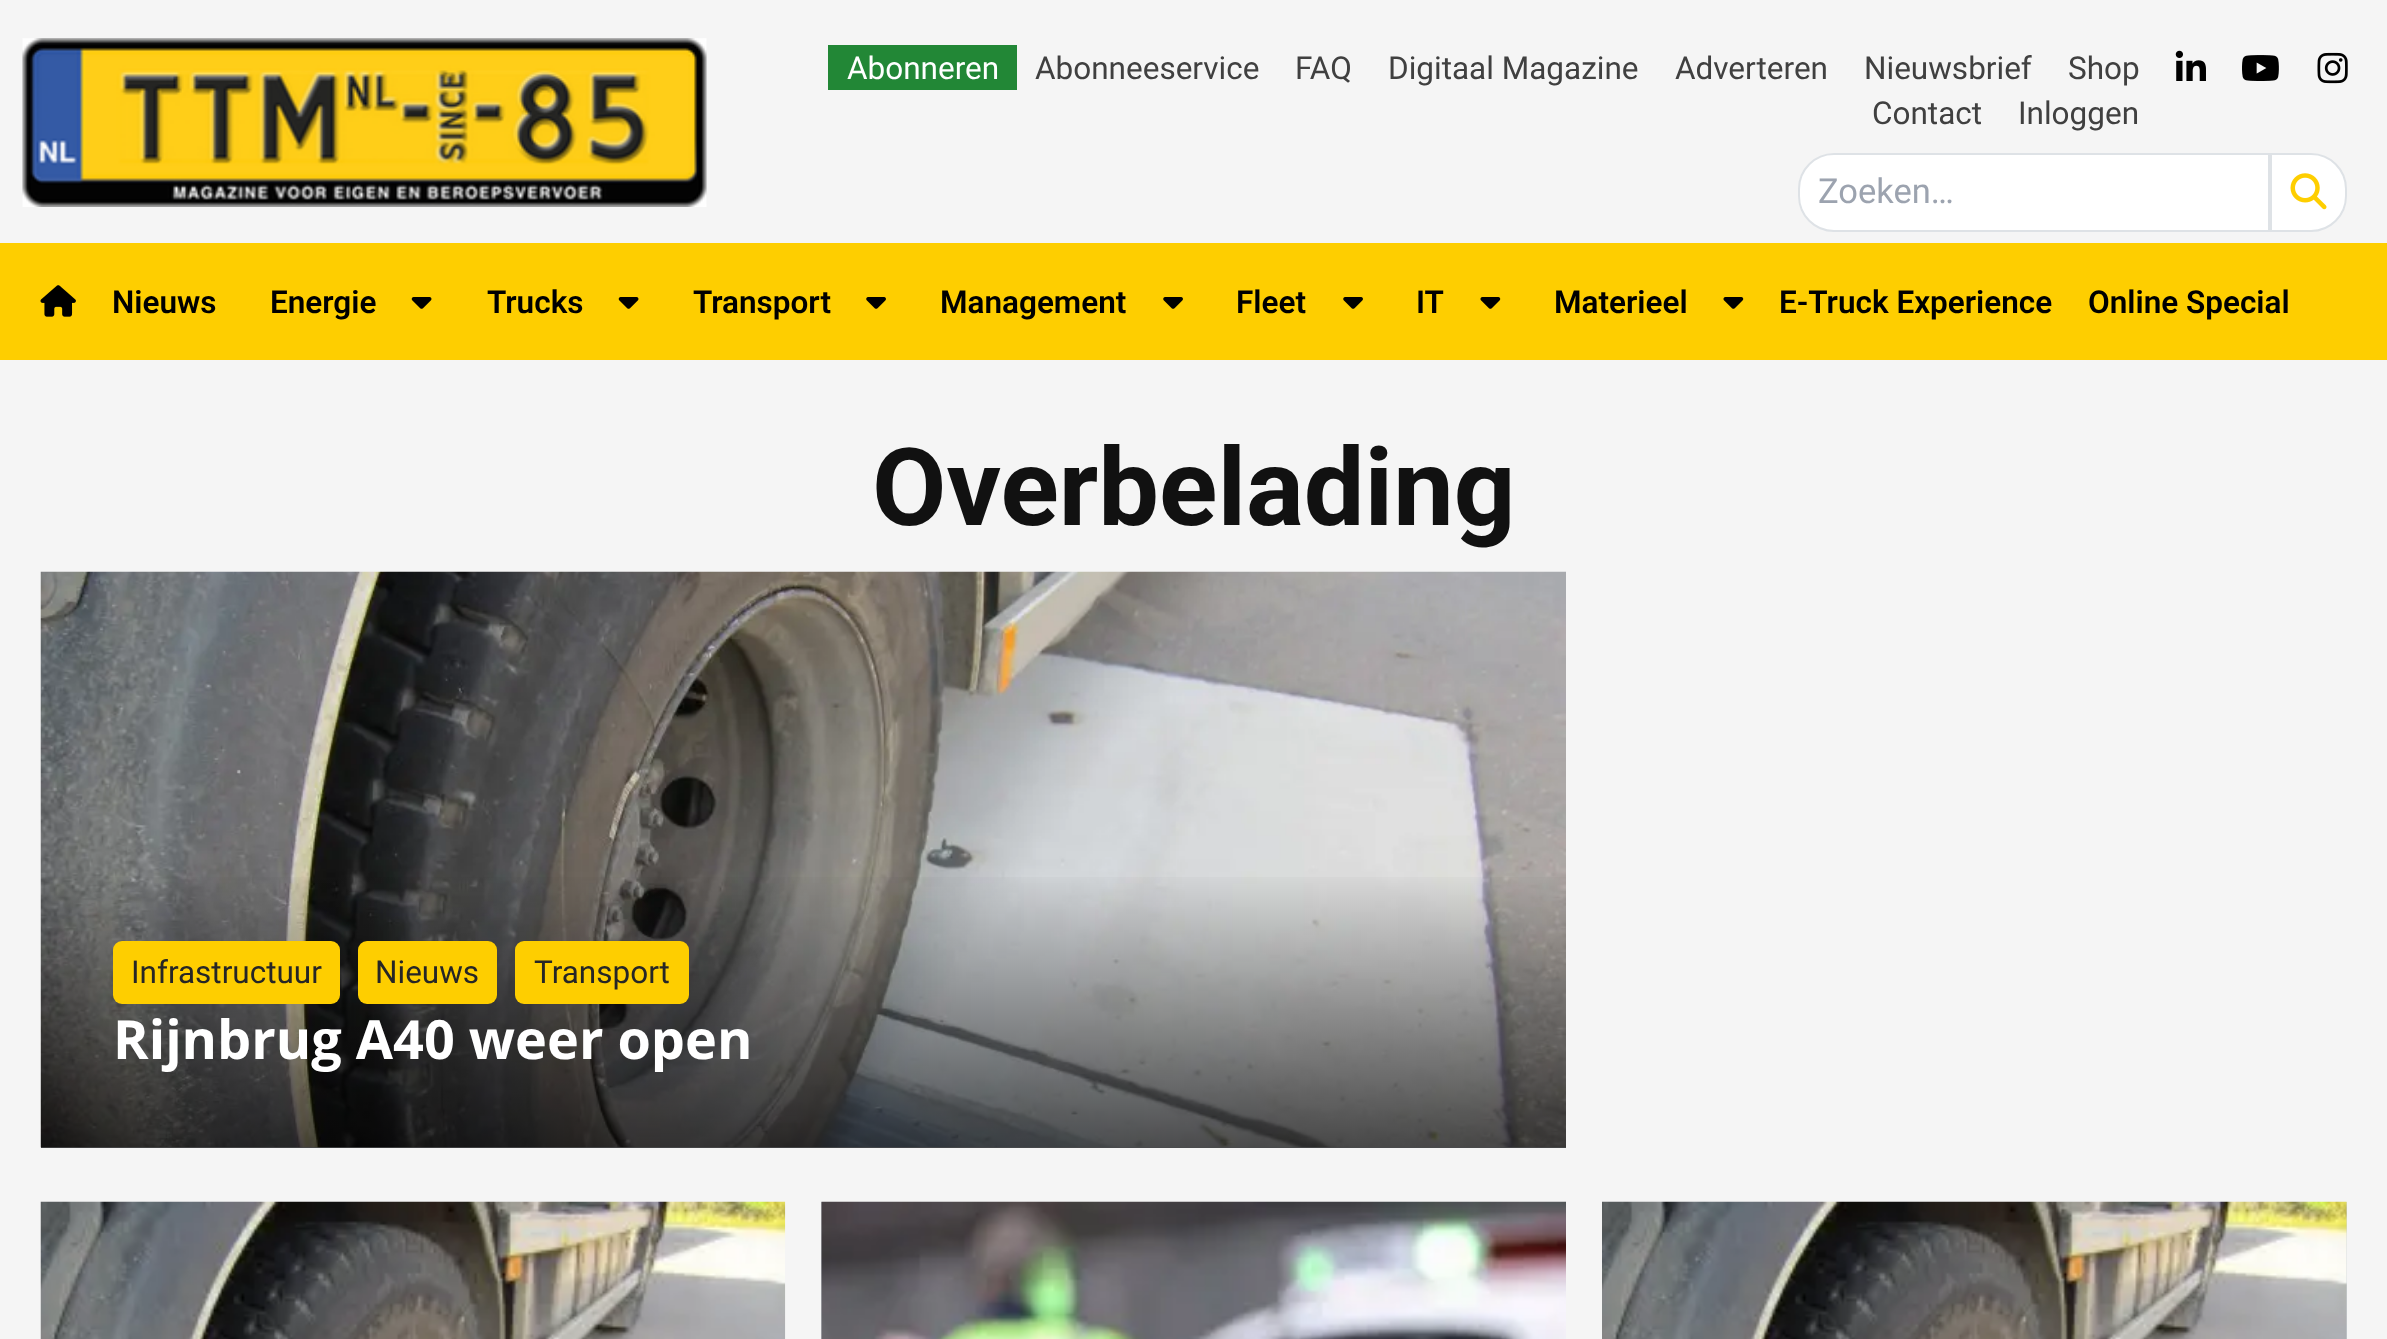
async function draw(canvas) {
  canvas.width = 2387;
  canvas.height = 1339;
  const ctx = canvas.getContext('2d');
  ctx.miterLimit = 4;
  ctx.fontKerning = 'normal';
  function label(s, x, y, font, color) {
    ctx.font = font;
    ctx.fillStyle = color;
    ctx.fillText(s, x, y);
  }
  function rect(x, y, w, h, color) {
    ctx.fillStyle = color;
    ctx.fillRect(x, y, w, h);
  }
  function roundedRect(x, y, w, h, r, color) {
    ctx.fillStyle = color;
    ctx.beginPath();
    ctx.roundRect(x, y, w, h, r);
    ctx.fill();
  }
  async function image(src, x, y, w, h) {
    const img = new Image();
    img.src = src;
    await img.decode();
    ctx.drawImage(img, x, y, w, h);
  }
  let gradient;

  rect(0, 0, 2387, 1339, '#f5f5f5');
  await image('assets/img1.png', 22, 38, 685, 169);
  rect(828, 45, 189, 45, '#228736');
  label('Abonneren', 847, 79, '31.5px Roboto', '#fff');
  label('Abonneeservice', 1035, 79, '31.5px Roboto', '#404040');
  label('FAQ', 1295, 79, '31.5px Roboto', '#404040');
  label('Digitaal Magazine', 1388, 79, '31.5px Roboto', '#404040');
  label('Adverteren', 1675, 79, '31.5px Roboto', '#404040');
  label('Nieuwsbrief', 1864, 79, '31.5px Roboto', '#404040');
  label('Shop', 2068, 79, '31.5px Roboto', '#404040');
  label('Contact', 1872, 124, '31.5px Roboto', '#404040');
  label('Inloggen', 2018, 124, '31.5px Roboto', '#404040');
  await image('assets/img2.png', 2175, 50, 31, 31);
  await image('assets/img3.png', 2242, 55, 37, 26);
  await image('assets/img4.png', 2317, 52, 31, 32);
  ctx.fillStyle = '#fff';
  ctx.beginPath();
  ctx.roundRect(1799, 154, 470, 77, [35, 0, 0, 35]);
  ctx.fill();
  ctx.strokeStyle = '#dee2e6';
  ctx.lineWidth = 2;
  ctx.stroke();
  label('Zoeken…', 1818, 203, '34.5px Roboto', '#9ca3af');
  ctx.fillStyle = '#fff';
  ctx.beginPath();
  ctx.roundRect(2271, 154, 75, 77, [0, 35, 35, 0]);
  ctx.fill();
  ctx.stroke();
  await image('assets/img5.png', 2290, 173, 37, 37);
  rect(0, 243, 2387, 117, '#fece00');
  await image('assets/img6.png', 40, 285, 36, 32);
  label('Nieuws', 112, 313, '600 31.5px Roboto', '#000');
  label('Energie', 270, 313, '600 31.5px Roboto', '#000');
  await image('assets/img7.png', 411, 297, 21, 12);
  label('Trucks', 487, 313, '600 31.5px Roboto', '#000');
  await image('assets/img7.png', 618, 297, 21, 12);
  label('Transport', 693, 313, '600 31.5px Roboto', '#000');
  await image('assets/img8.png', 866, 297, 20, 12);
  label('Management', 940, 313, '600 31.5px Roboto', '#000');
  await image('assets/img8.png', 1163, 297, 20, 12);
  label('Fleet', 1236, 313, '600 31.5px Roboto', '#000');
  await image('assets/img8.png', 1343, 297, 20, 12);
  label('IT', 1416, 313, '600 31.5px Roboto', '#000');
  await image('assets/img9.png', 1480, 297, 21, 12);
  label('Materieel', 1554, 313, '600 31.5px Roboto', '#000');
  await image('assets/img9.png', 1723, 297, 21, 12);
  label('E-Truck Experience', 1779, 313, '600 31.5px Roboto', '#000');
  label('Online Special', 2088, 313, '600 31.5px Roboto', '#000');
  label('Overbelading', 872, 525, 'bold 108px Roboto', '#111');
  rect(41, 1147, 1525, 1, '#d1d5db');
  await image('assets/img10.png', 40, 571, 1526, 577);
  gradient = ctx.createLinearGradient(803, 868, 803, 1148);
  gradient.addColorStop(0, '#00000000');
  gradient.addColorStop(1, '#000000a6');
  ctx.fillStyle = gradient;
  ctx.fillRect(41, 877, 1525, 271);
  roundedRect(113, 941, 227, 63, 9, '#fece00');
  label('Infrastructuur', 131, 983, '31.5px Roboto', '#262626');
  roundedRect(358, 941, 139, 63, 9, '#fece00');
  label('Nieuws', 375, 983, '31.5px Roboto', '#262626');
  roundedRect(515, 941, 174, 63, 9, '#fece00');
  label('Transport', 534, 983, '31.5px Roboto', '#262626');
  label('Rijnbrug A40 weer open', 113, 1059, 'bold 54px Open Sans', '#fff');
  await image('assets/img11.png', 40, 1201, 746, 138);
  rect(821, 1202, 1, 137, '#d1d5db');
  await image('assets/img12.png', 821, 1201, 745, 138);
  rect(2346, 1202, 1, 137, '#d1d5db');
  await image('assets/img13.png', 1602, 1201, 745, 138);
}

draw(document.querySelector('canvas'));
